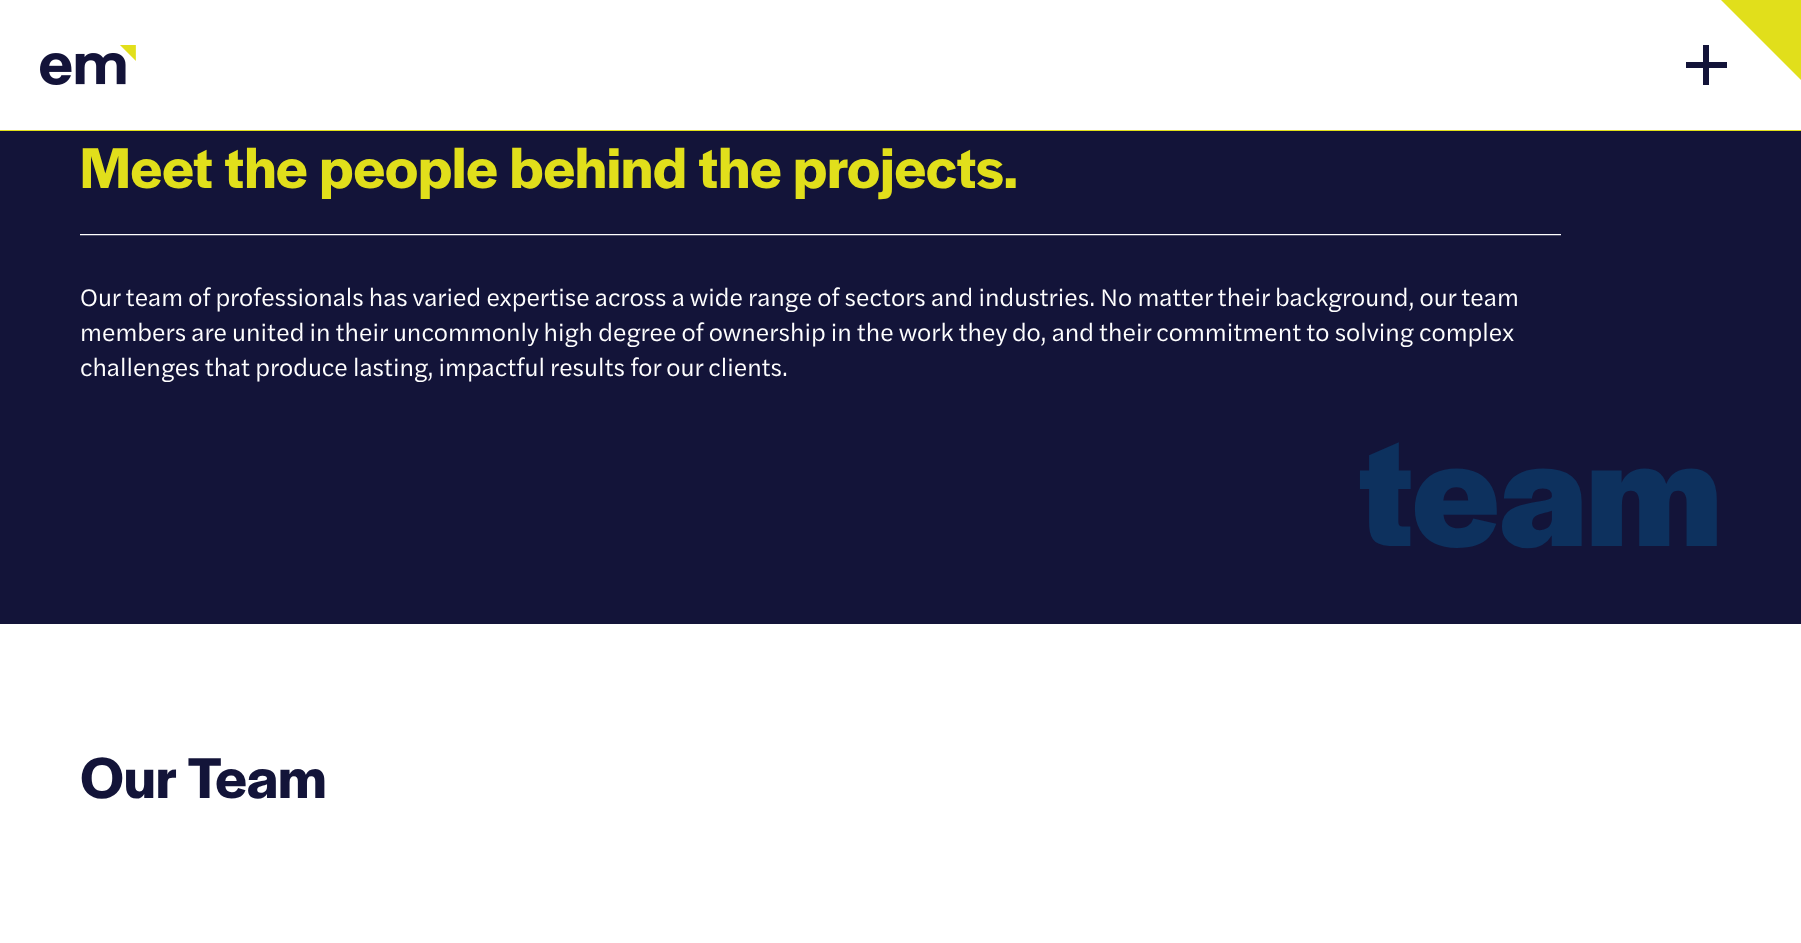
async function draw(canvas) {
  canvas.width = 1801;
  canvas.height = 943;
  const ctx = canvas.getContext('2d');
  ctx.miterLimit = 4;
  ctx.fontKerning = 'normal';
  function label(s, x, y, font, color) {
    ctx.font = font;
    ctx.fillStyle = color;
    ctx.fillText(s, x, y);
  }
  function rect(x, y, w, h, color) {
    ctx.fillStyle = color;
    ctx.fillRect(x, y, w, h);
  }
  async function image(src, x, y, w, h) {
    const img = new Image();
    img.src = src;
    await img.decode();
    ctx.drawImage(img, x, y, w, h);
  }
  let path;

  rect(0, 0, 1801, 943, '#131439');
  rect(0, 0, 1801, 131, '#e1df1b');
  ctx.fillStyle = '#fff';
  path = new Path2D('M0 0V130H1801V80L1721 0Z');
  ctx.fill(path);
  await image('assets/img1.png', 40, 45, 96, 40);
  ctx.fillStyle = '#131439';
  path = new Path2D('M1709 48V45H1703V62H1686V68H1703V85H1709V68H1727V62H1709Z');
  ctx.fill(path);
  label('Meet the people behind the projects.', 80, 188, '600 60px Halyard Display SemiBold', '#e1df1b');
  ctx.save();
  ctx.beginPath();
  ctx.rect(80, 234, 1481, 5);
  ctx.clip();
  path = new Path2D('M80 234H1561');
  ctx.strokeStyle = '#fff';
  ctx.lineWidth = 2.5;
  ctx.stroke(path);
  ctx.restore();
  label('Our team of professionals has varied expertise across a wide range of sectors and industries. No matter their background, our team', 80, 306, '25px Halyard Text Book', '#fff');
  label('members are united in their uncommonly high degree of ownership in the work they do, and their commitment to solving complex', 80, 341, '25px Halyard Text Book', '#fff');
  label('challenges that produce lasting, impactful results for our clients.', 80, 376, '25px Halyard Text Book', '#fff');
  label('team', 1359, 546, 'bold 160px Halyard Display', '#0d315e');
  rect(0, 624, 1801, 319, '#fff');
  label('Our Team', 80, 798, '600 60px Halyard Display SemiBold', '#131439');
}

draw(document.querySelector('canvas'));
